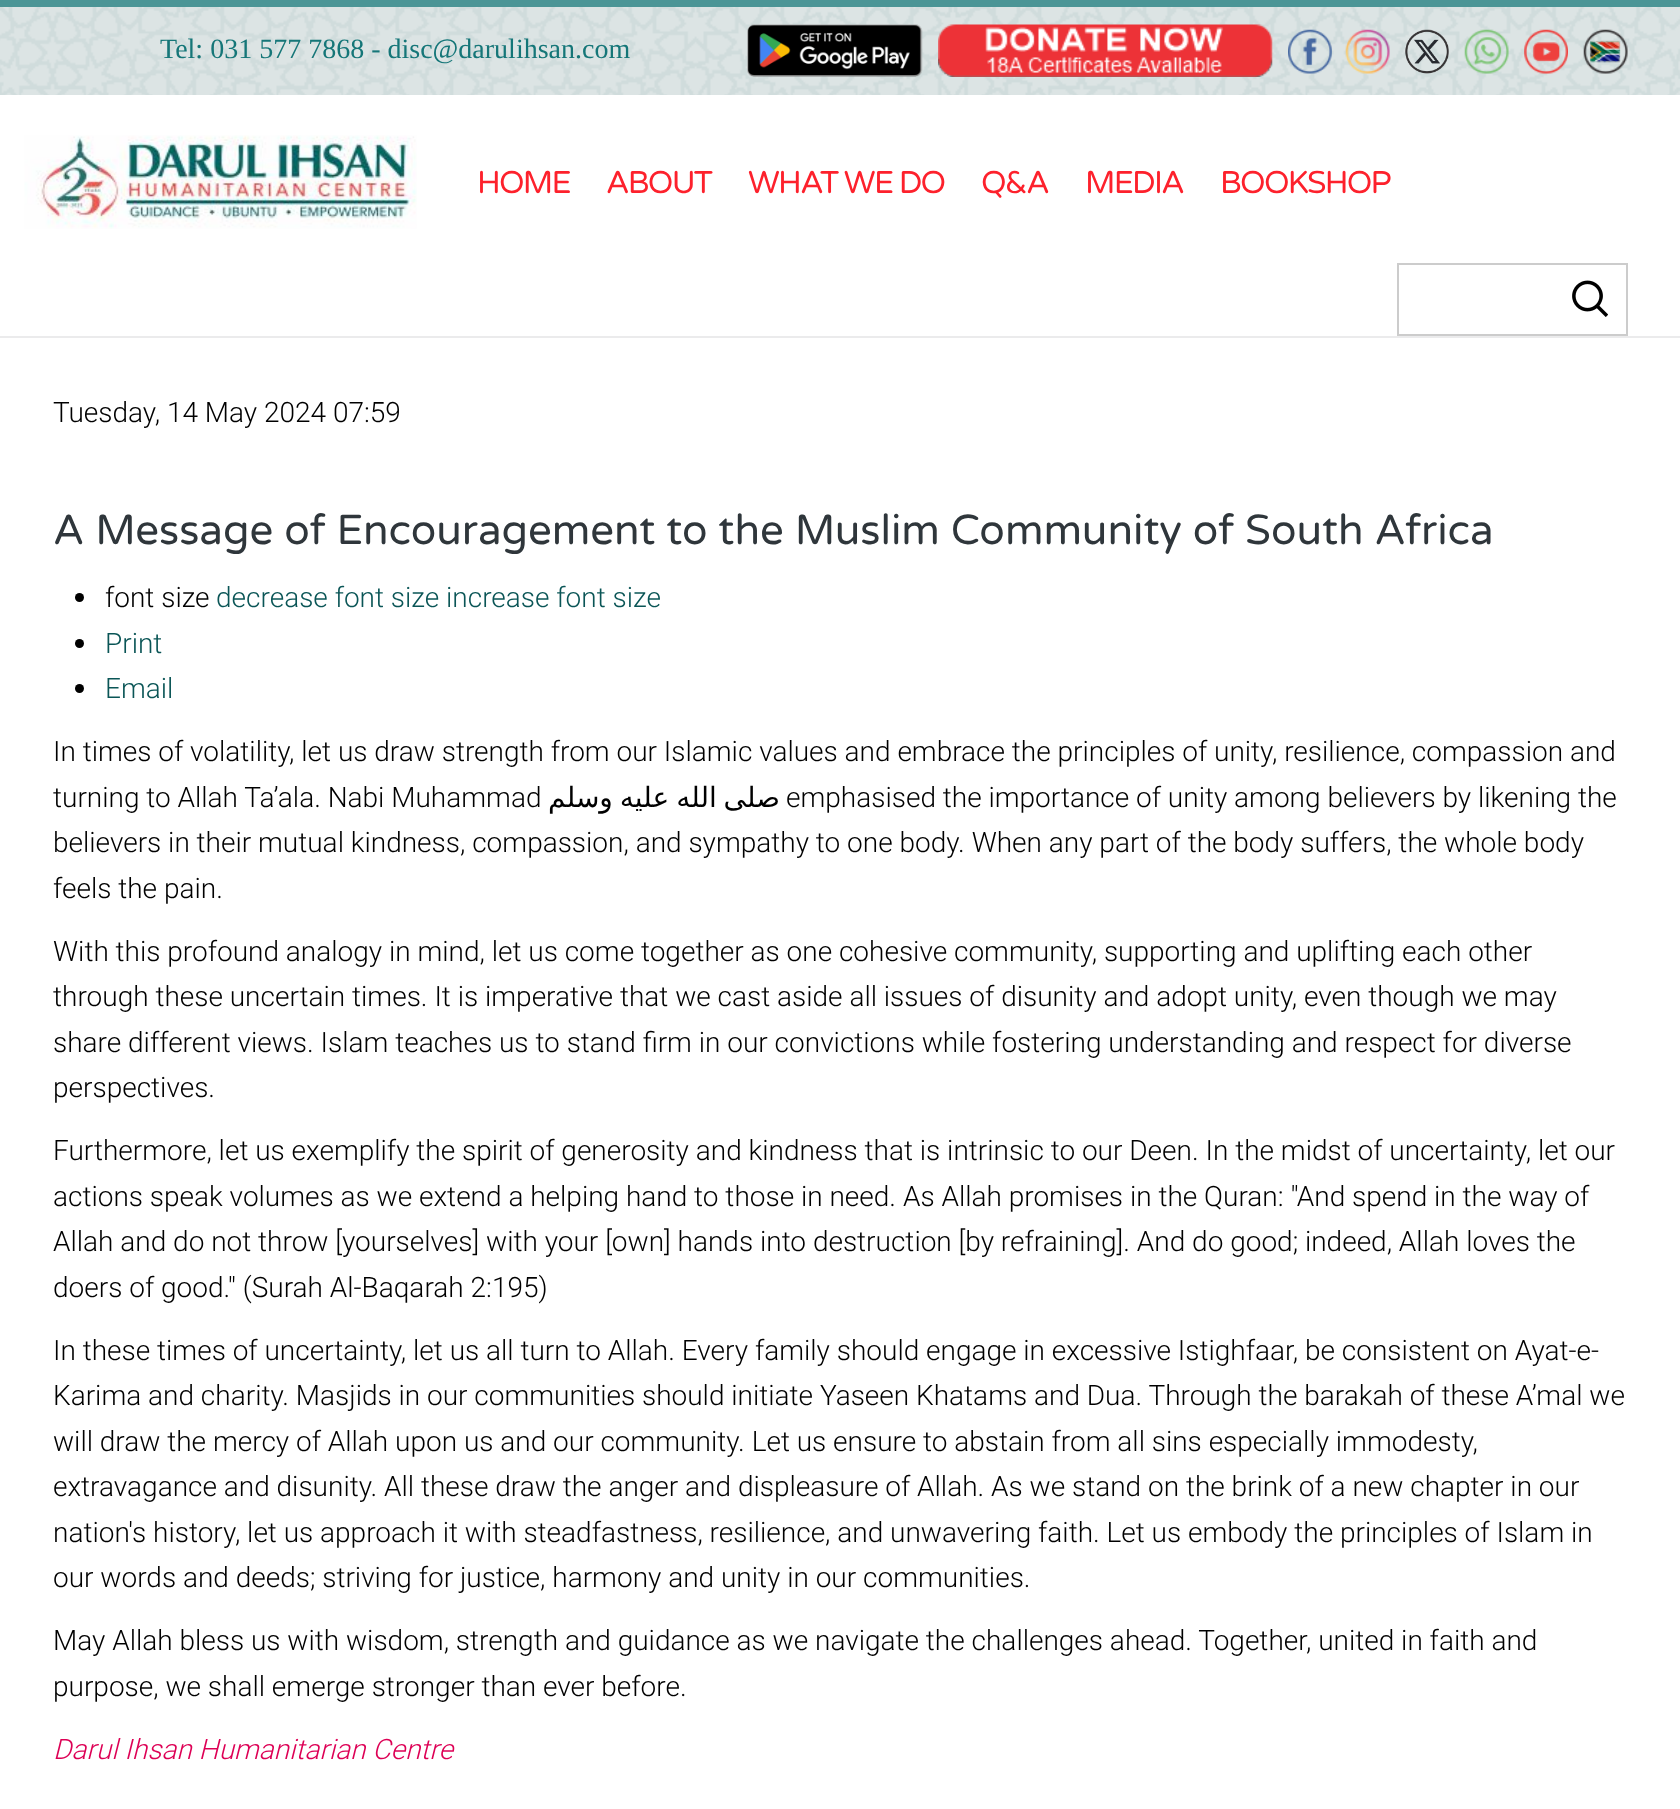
async function draw(canvas) {
  canvas.width = 1680;
  canvas.height = 1809;
  const ctx = canvas.getContext('2d');
  ctx.miterLimit = 4;
  ctx.fontKerning = 'normal';
  function label(s, x, y, font, color) {
    ctx.font = font;
    ctx.fillStyle = color;
    ctx.fillText(s, x, y);
  }
  function rect(x, y, w, h, color) {
    ctx.fillStyle = color;
    ctx.fillRect(x, y, w, h);
  }
  async function image(src, x, y, w, h) {
    const img = new Image();
    img.src = src;
    await img.decode();
    ctx.drawImage(img, x, y, w, h);
  }

  rect(0, 0, 1680, 1809, '#fff');
  await image('assets/img1.png', 0, 7, 1680, 88);
  rect(0, 0, 1680, 7, '#4b9596');
  label('Tel: 031 577 7868 - disc@darulihsan.com', 160, 58, '28px Liberation Serif', '#157678');
  await image('assets/img2.png', 747, 24, 176, 53);
  await image('assets/img3.png', 938, 24, 335, 53);
  await image('assets/img4.png', 1288, 29, 44, 45);
  await image('assets/img5.png', 1345, 29, 45, 45);
  await image('assets/img6.png', 1405, 29, 44, 45);
  await image('assets/img7.png', 1464, 29, 45, 45);
  await image('assets/img8.png', 1524, 29, 44, 45);
  await image('assets/img9.png', 1583, 29, 45, 45);
  await image('assets/img10.png', 24, 135, 393, 94);
  ctx.letterSpacing = '-1.75px';
  label('HOME', 477, 193, '31.5px Varela Round', '#fd212c');
  label('ABOUT', 606, 193, '31.5px Varela Round', '#fd212c');
  label('WHAT WE DO', 748, 193, '31.5px Varela Round', '#fd212c');
  label('Q&A', 981, 193, '31.5px Varela Round', '#fd212c');
  label('MEDIA', 1085, 193, '31.5px Varela Round', '#fd212c');
  label('BOOKSHOP', 1220, 193, '31.5px Varela Round', '#fd212c');
  ctx.strokeStyle = '#ccc';
  ctx.lineWidth = 2;
  ctx.strokeRect(1398, 264, 229, 71);
  await image('assets/img11.png', 1572, 280, 36, 37);
  rect(0, 336, 1680, 2, '#ebebec');
  ctx.letterSpacing = '0px';
  label('Tuesday, 14 May 2024 07:59', 53, 422, '300 28px Roboto', '#000');
  label('A Message of Encouragement to the Muslim Community of South Africa', 53, 544, '42px Varela Round', '#2f363b');
  ctx.fillStyle = '#000';
  ctx.beginPath();
  ctx.arc(79.5, 597.5, 4.5, 0, 2 * Math.PI);
  ctx.fill();
  label('font size', 105, 607, '300 28px Roboto', '#000');
  label('decrease font size increase font size', 216, 607, '300 28px Roboto', '#0a5556');
  ctx.fillStyle = '#000';
  ctx.beginPath();
  ctx.arc(79.5, 643.5, 4.5, 0, 2 * Math.PI);
  ctx.fill();
  label('Print', 105, 653, '300 28px Roboto', '#0a5556');
  ctx.fillStyle = '#000';
  ctx.beginPath();
  ctx.arc(79.5, 688.5, 4.5, 0, 2 * Math.PI);
  ctx.fill();
  label('Email', 105, 698, '300 28px Roboto', '#0a5556');
  label('In times of volatility, let us draw strength from our Islamic values and embrace the principles of unity, resilience, compassion and', 53, 761, '300 28px Roboto', '#000');
  label('turning to Allah Ta’ala. Nabi Muhammad', 53, 807, '300 28px Roboto', '#000');
  ctx.wordSpacing = '-2px';
  ctx.direction = 'rtl';
  label('صلى الله عليه وسلم', 780, 807, '28px DejaVu Sans', '#000');
  ctx.wordSpacing = '0px';
  ctx.direction = 'ltr';
  label('emphasised the importance of unity among believers by likening the', 786, 807, '300 28px Roboto', '#000');
  label('believers in their mutual kindness, compassion, and sympathy to one body. When any part of the body suffers, the whole body', 53, 852, '300 28px Roboto', '#000');
  label('feels the pain.', 53, 898, '300 28px Roboto', '#000');
  label('With this profound analogy in mind, let us come together as one cohesive community, supporting and uplifting each other', 53, 961, '300 28px Roboto', '#000');
  label('through these uncertain times. It is imperative that we cast aside all issues of disunity and adopt unity, even though we may', 53, 1006, '300 28px Roboto', '#000');
  label('share different views. Islam teaches us to stand firm in our convictions while fostering understanding and respect for diverse', 53, 1052, '300 28px Roboto', '#000');
  label('perspectives.', 53, 1097, '300 28px Roboto', '#000');
  label('Furthermore, let us exemplify the spirit of generosity and kindness that is intrinsic to our Deen. In the midst of uncertainty, let our', 53, 1160, '300 28px Roboto', '#000');
  label('actions speak volumes as we extend a helping hand to those in need. As Allah promises in the Quran: "And spend in the way of', 53, 1206, '300 28px Roboto', '#000');
  label('Allah and do not throw [yourselves] with your [own] hands into destruction [by refraining]. And do good; indeed, Allah loves the', 53, 1251, '300 28px Roboto', '#000');
  label('doers of good." (Surah Al-Baqarah 2:195)', 53, 1297, '300 28px Roboto', '#000');
  label('In these times of uncertainty, let us all turn to Allah. Every family should engage in excessive Istighfaar, be consistent on Ayat-e-', 53, 1360, '300 28px Roboto', '#000');
  label('Karima and charity. Masjids in our communities should initiate Yaseen Khatams and Dua. Through the barakah of these A’mal we', 53, 1405, '300 28px Roboto', '#000');
  label('will draw the mercy of Allah upon us and our community. Let us ensure to abstain from all sins especially immodesty,', 53, 1451, '300 28px Roboto', '#000');
  label('extravagance and disunity. All these draw the anger and displeasure of Allah. As we stand on the brink of a new chapter in our', 53, 1496, '300 28px Roboto', '#000');
  label('nation\'s history, let us approach it with steadfastness, resilience, and unwavering faith. Let us embody the principles of Islam in', 53, 1542, '300 28px Roboto', '#000');
  label('our words and deeds; striving for justice, harmony and unity in our communities.', 53, 1587, '300 28px Roboto', '#000');
  label('May Allah bless us with wisdom, strength and guidance as we navigate the challenges ahead. Together, united in faith and', 53, 1650, '300 28px Roboto', '#000');
  label('purpose, we shall emerge stronger than ever before.', 53, 1696, '300 28px Roboto', '#000');
  label('Darul Ihsan Humanitarian Centre', 53, 1759, 'italic 300 28px Roboto', '#d05');
}

draw(document.querySelector('canvas'));
